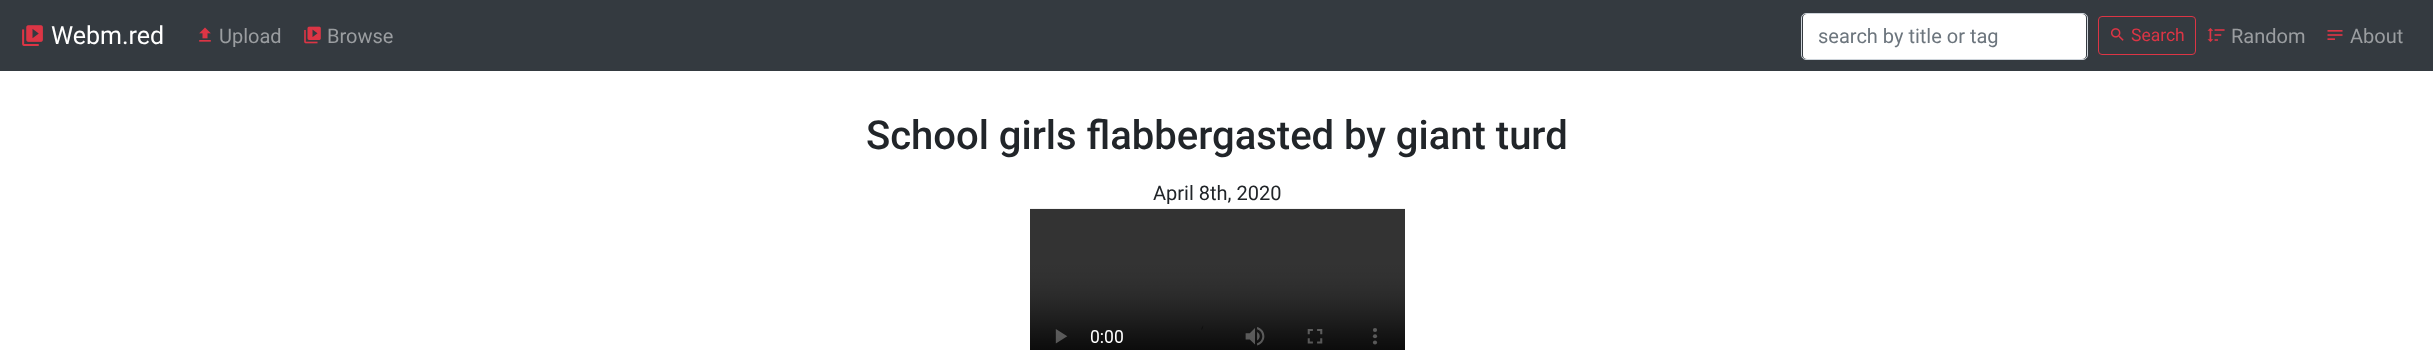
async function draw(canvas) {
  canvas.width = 2433;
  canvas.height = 350;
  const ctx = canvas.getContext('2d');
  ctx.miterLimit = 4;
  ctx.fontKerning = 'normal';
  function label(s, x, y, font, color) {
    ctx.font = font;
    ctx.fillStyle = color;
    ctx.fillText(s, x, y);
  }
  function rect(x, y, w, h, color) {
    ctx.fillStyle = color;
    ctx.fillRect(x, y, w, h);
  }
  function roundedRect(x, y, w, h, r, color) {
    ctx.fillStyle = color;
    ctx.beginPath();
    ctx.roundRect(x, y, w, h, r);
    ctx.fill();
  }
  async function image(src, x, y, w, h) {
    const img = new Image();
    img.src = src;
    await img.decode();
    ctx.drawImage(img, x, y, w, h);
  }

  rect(0, 0, 2433, 350, '#fff');
  rect(0, 0, 2433, 71, '#343a40');
  await image('assets/img1.png', 22, 25, 21, 21);
  label('Webm.red', 51, 44, '25px Roboto', '#fff');
  await image('assets/img2.png', 199, 27, 12, 15);
  label('Upload', 219, 43, '20px Roboto', '#9a9da0');
  await image('assets/img3.png', 304, 26, 17, 18);
  label('Browse', 327, 43, '20px Roboto', '#9a9da0');
  roundedRect(1803, 14, 283, 45, 4, '#fff');
  ctx.beginPath();
  ctx.roundRect(1801.5, 13.5, 286, 46, 4.5);
  ctx.strokeStyle = '#ced4da';
  ctx.stroke();
  label('search by title or tag', 1818, 43, '20px Roboto', '#6c757d');
  ctx.beginPath();
  ctx.roundRect(2098.5, 16.5, 97, 38, 3.5);
  ctx.strokeStyle = '#dc3545';
  ctx.stroke();
  await image('assets/img4.png', 2110, 28, 14, 13);
  label('Search', 2131, 41, '17.5px Roboto', '#dc3545');
  await image('assets/img5.png', 2207, 28, 18, 14);
  label('Random', 2231, 43, '20px Roboto', '#9a9da0');
  await image('assets/img6.png', 2327, 30, 16, 10);
  label('About', 2350, 43, '20px Roboto', '#9a9da0');
  label('School girls flabbergasted by giant turd', 866, 149, '500 40px Roboto', '#212529');
  label('April 8th, 2020', 1153, 200, '20px Roboto', '#212529');
  await image('assets/img7.png', 1030, 208, 375, 142);
}

draw(document.querySelector('canvas'));
